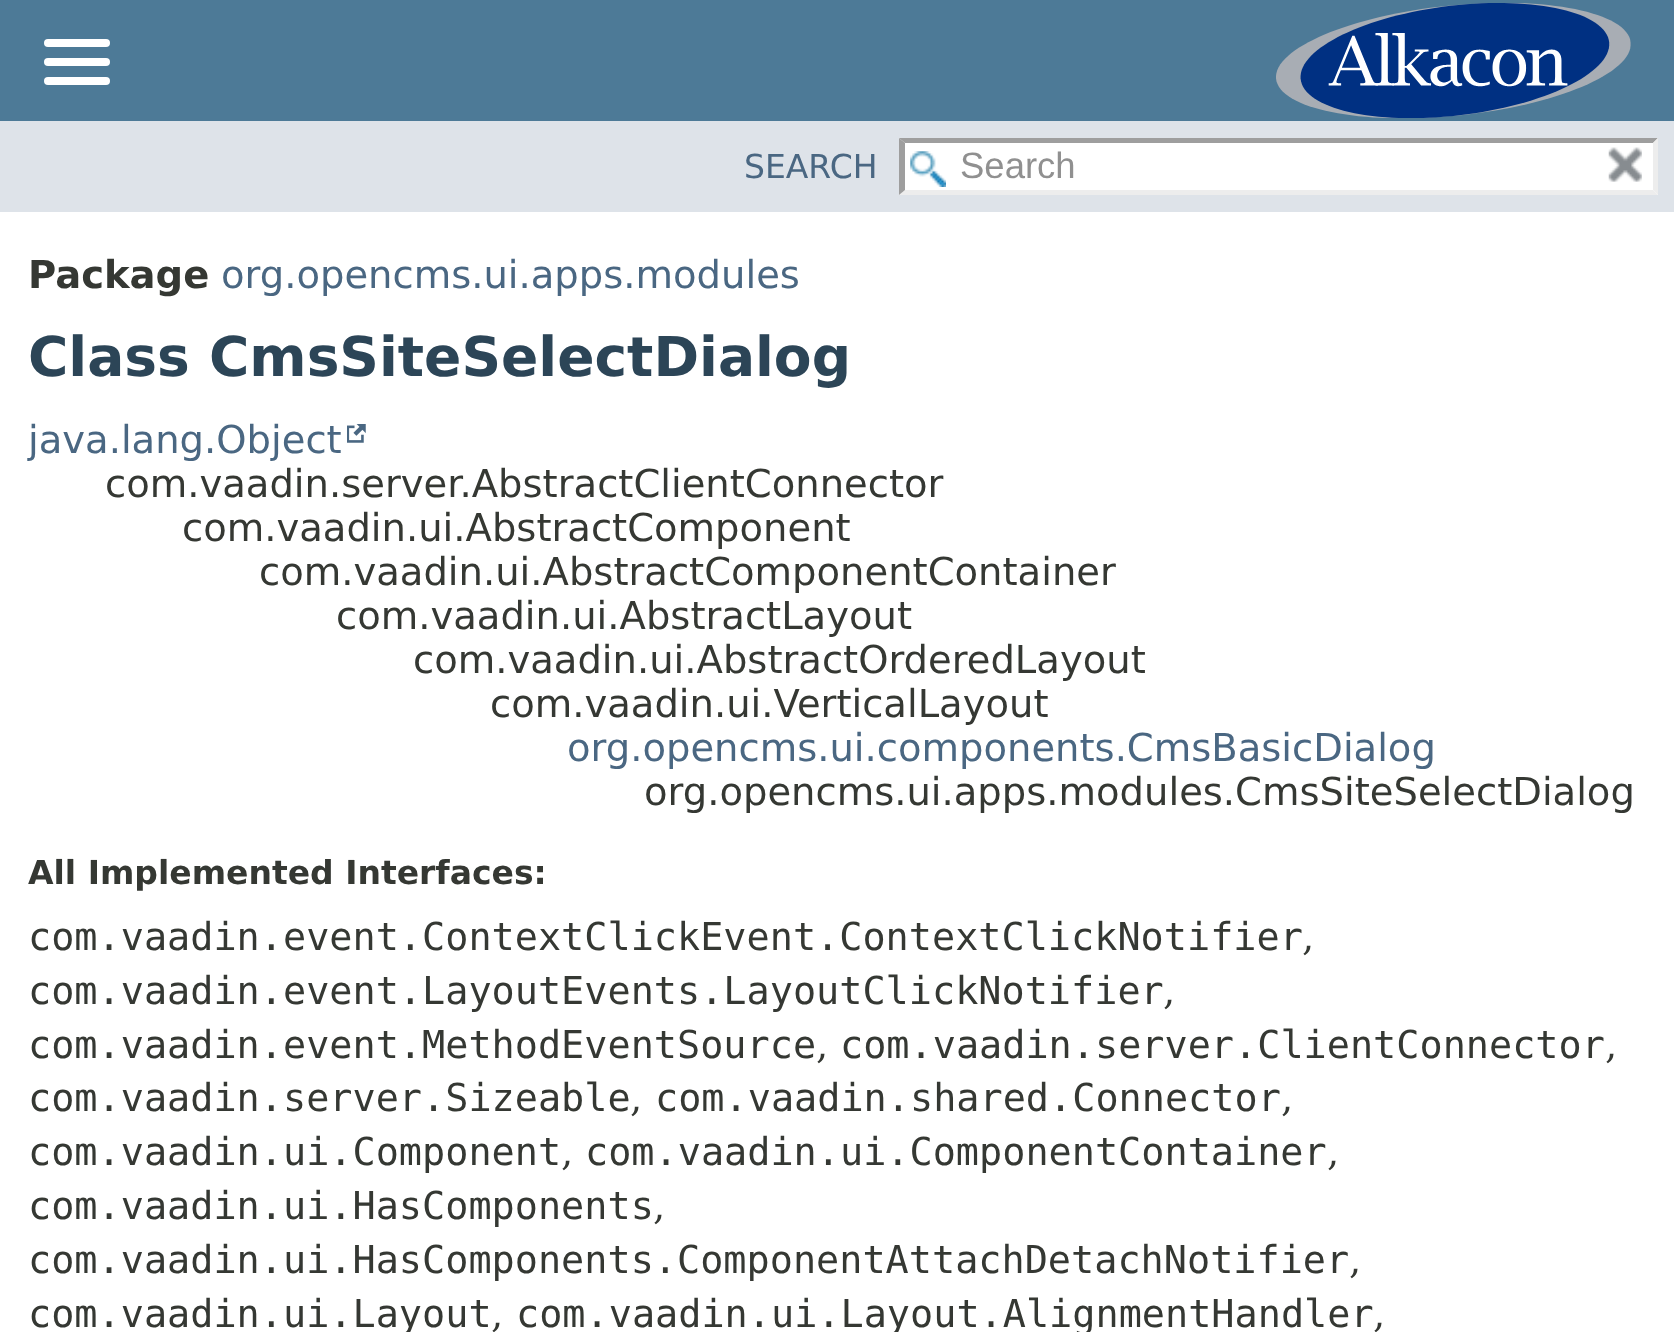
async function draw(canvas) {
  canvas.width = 1674;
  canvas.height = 1332;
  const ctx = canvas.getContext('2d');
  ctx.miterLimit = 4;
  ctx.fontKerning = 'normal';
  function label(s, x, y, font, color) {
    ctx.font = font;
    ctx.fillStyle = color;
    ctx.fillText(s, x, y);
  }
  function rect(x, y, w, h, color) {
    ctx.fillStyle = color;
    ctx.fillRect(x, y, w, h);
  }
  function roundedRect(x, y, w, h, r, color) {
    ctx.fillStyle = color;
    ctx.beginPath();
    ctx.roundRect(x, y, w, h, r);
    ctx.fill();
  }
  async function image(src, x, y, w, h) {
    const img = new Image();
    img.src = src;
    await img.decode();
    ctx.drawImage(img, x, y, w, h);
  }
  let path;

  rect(0, 0, 1674, 1332, '#fff');
  rect(0, 0, 1674, 121, '#4d7a97');
  roundedRect(44, 39, 66, 8, 4, '#fff');
  roundedRect(44, 58, 66, 8, 4, '#fff');
  roundedRect(44, 77, 66, 8, 4, '#fff');
  await image('assets/img1.png', 1276, 3, 355, 115);
  rect(0, 121, 1674, 91, '#dee3e9');
  label('SEARCH', 744, 178, '33px DejaVu Sans', '#4a6782');
  rect(899, 138, 759, 57, '#fff');
  await image('assets/img2.png', 910, 151, 36, 36);
  ctx.fillStyle = '#9e9e9e';
  path = new Path2D('M899 138H1658L1653 143H905Z');
  ctx.fill(path);
  ctx.fillStyle = '#ededed';
  path = new Path2D('M1658 138V195L1653 190V143Z');
  ctx.fill(path);
  path = new Path2D('M1658 195H899L905 190H1653Z');
  ctx.fill(path);
  ctx.fillStyle = '#9e9e9e';
  path = new Path2D('M899 195V138L905 143V190Z');
  ctx.fill(path);
  label('Search', 960, 178, '36.5px Liberation Sans', '#909090');
  await image('assets/img3.png', 1608, 147, 34, 35);
  label('Package', 28, 288, 'bold 38.5px DejaVu Sans', '#353833');
  label('org.opencms.ui.apps.modules', 221, 288, '38.5px DejaVu Sans', '#4a6782');
  label('Class CmsSiteSelectDialog', 28, 376, 'bold 55px DejaVu Sans', '#2c4557');
  label('java.lang.Object', 28, 453, '38.5px DejaVu Sans', '#4a6782');
  await image('assets/img4.png', 347, 424, 19, 19);
  label('com.vaadin.server.AbstractClientConnector', 105, 497, '38.5px DejaVu Sans', '#353833');
  label('com.vaadin.ui.AbstractComponent', 182, 541, '38.5px DejaVu Sans', '#353833');
  label('com.vaadin.ui.AbstractComponentContainer', 259, 585, '38.5px DejaVu Sans', '#353833');
  label('com.vaadin.ui.AbstractLayout', 336, 629, '38.5px DejaVu Sans', '#353833');
  label('com.vaadin.ui.AbstractOrderedLayout', 413, 673, '38.5px DejaVu Sans', '#353833');
  label('com.vaadin.ui.VerticalLayout', 490, 717, '38.5px DejaVu Sans', '#353833');
  label('org.opencms.ui.components.CmsBasicDialog', 567, 761, '38.5px DejaVu Sans', '#4a6782');
  label('org.opencms.ui.apps.modules.CmsSiteSelectDialog', 644, 805, '38.5px DejaVu Sans', '#353833');
  label('All Implemented Interfaces:', 28, 884, 'bold 33px DejaVu Sans', '#353833');
  label('com.vaadin.event.ContextClickEvent.ContextClickNotifier', 28, 950, '38.5px DejaVu Sans Mono', '#353833');
  label(',', 1302, 950, '38.5px DejaVu Serif', '#353833');
  label('com.vaadin.event.LayoutEvents.LayoutClickNotifier', 28, 1004, '38.5px DejaVu Sans Mono', '#353833');
  label(',', 1163, 1004, '38.5px DejaVu Serif', '#353833');
  label('com.vaadin.event.MethodEventSource', 28, 1058, '38.5px DejaVu Sans Mono', '#353833');
  label(',', 816, 1058, '38.5px DejaVu Serif', '#353833');
  label('com.vaadin.server.ClientConnector', 840, 1058, '38.5px DejaVu Sans Mono', '#353833');
  label(',', 1605, 1058, '38.5px DejaVu Serif', '#353833');
  label('com.vaadin.server.Sizeable', 28, 1111, '38.5px DejaVu Sans Mono', '#353833');
  label(',', 630, 1111, '38.5px DejaVu Serif', '#353833');
  label('com.vaadin.shared.Connector', 655, 1111, '38.5px DejaVu Sans Mono', '#353833');
  label(',', 1281, 1111, '38.5px DejaVu Serif', '#353833');
  label('com.vaadin.ui.Component', 28, 1165, '38.5px DejaVu Sans Mono', '#353833');
  label(',', 561, 1165, '38.5px DejaVu Serif', '#353833');
  label('com.vaadin.ui.ComponentContainer', 585, 1165, '38.5px DejaVu Sans Mono', '#353833');
  label(',', 1327, 1165, '38.5px DejaVu Serif', '#353833');
  label('com.vaadin.ui.HasComponents', 28, 1219, '38.5px DejaVu Sans Mono', '#353833');
  label(',', 653, 1219, '38.5px DejaVu Serif', '#353833');
  label('com.vaadin.ui.HasComponents.ComponentAttachDetachNotifier', 28, 1273, '38.5px DejaVu Sans Mono', '#353833');
  label(',', 1349, 1273, '38.5px DejaVu Serif', '#353833');
  label('com.vaadin.ui.Layout', 28, 1327, '38.5px DejaVu Sans Mono', '#353833');
  label(',', 491, 1327, '38.5px DejaVu Serif', '#353833');
  label('com.vaadin.ui.Layout.AlignmentHandler', 516, 1327, '38.5px DejaVu Sans Mono', '#353833');
  label(',', 1373, 1327, '38.5px DejaVu Serif', '#353833');
}

draw(document.querySelector('canvas'));
